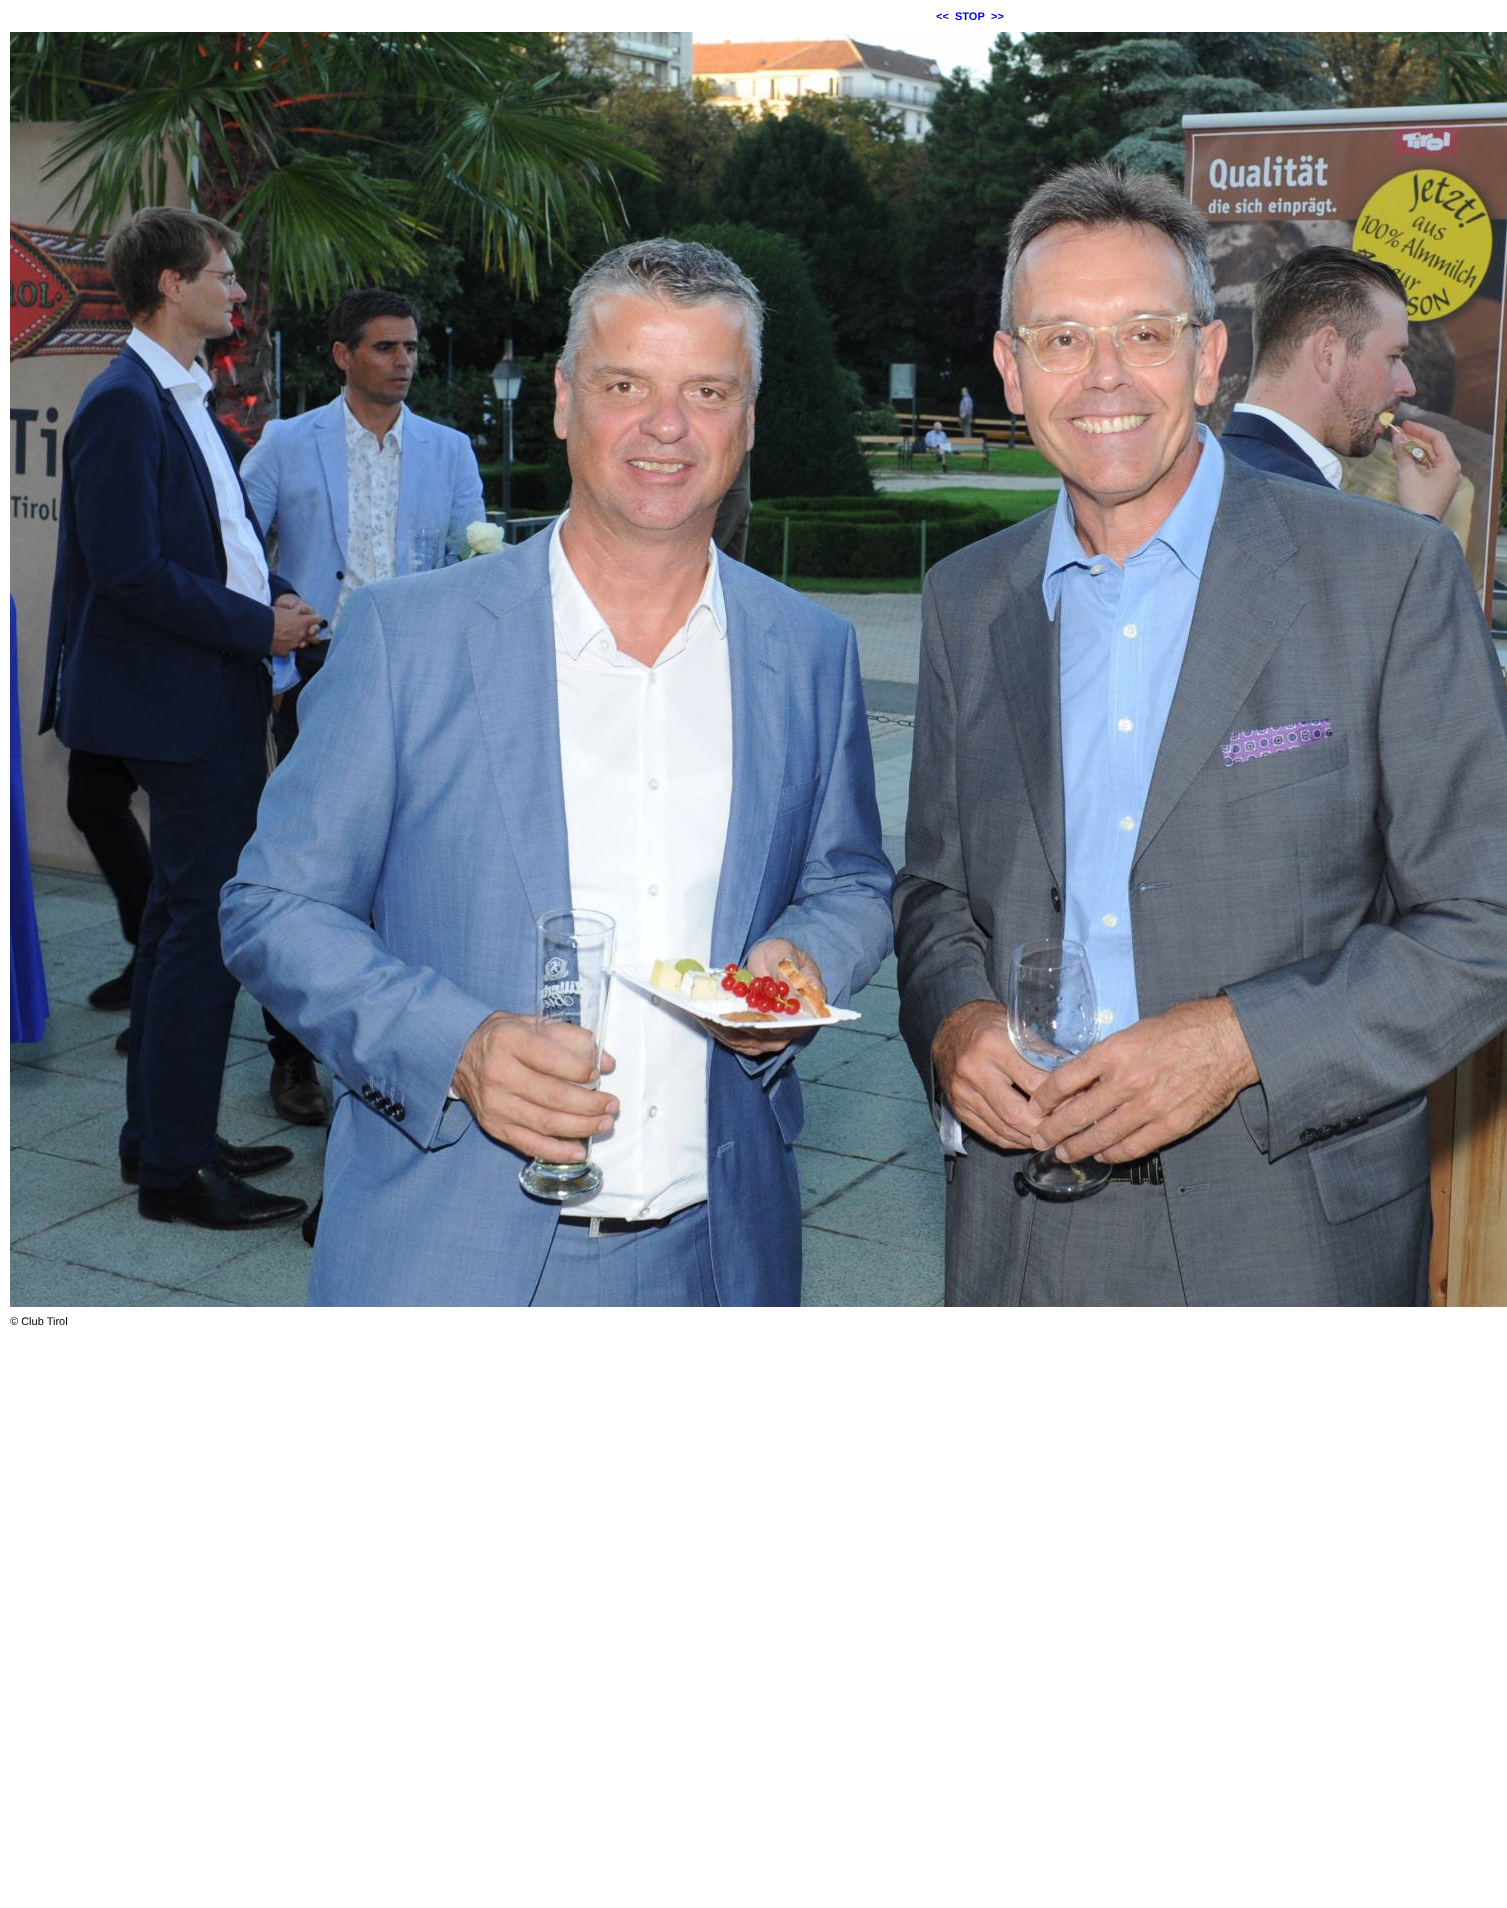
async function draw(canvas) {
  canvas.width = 1507;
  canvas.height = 1908;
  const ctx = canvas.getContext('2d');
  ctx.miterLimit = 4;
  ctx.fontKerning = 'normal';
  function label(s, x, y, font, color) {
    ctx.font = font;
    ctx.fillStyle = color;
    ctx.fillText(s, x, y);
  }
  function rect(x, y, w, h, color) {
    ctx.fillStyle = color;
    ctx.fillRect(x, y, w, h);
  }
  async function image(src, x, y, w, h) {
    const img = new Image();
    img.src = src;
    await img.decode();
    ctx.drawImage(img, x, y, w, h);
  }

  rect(0, 0, 1507, 1908, '#fff');
  label('<<', 936, 20, 'bold 11px Liberation Sans', '#00f');
  label('STOP', 955, 20, 'bold 11px Liberation Sans', '#00f');
  label('>>', 991, 20, 'bold 11px Liberation Sans', '#00f');
  await image('assets/img1.png', 10, 32, 1497, 1275);
  label('© Club Tirol', 10, 1325, '11px Liberation Sans', '#000');
}

draw(document.querySelector('canvas'));
